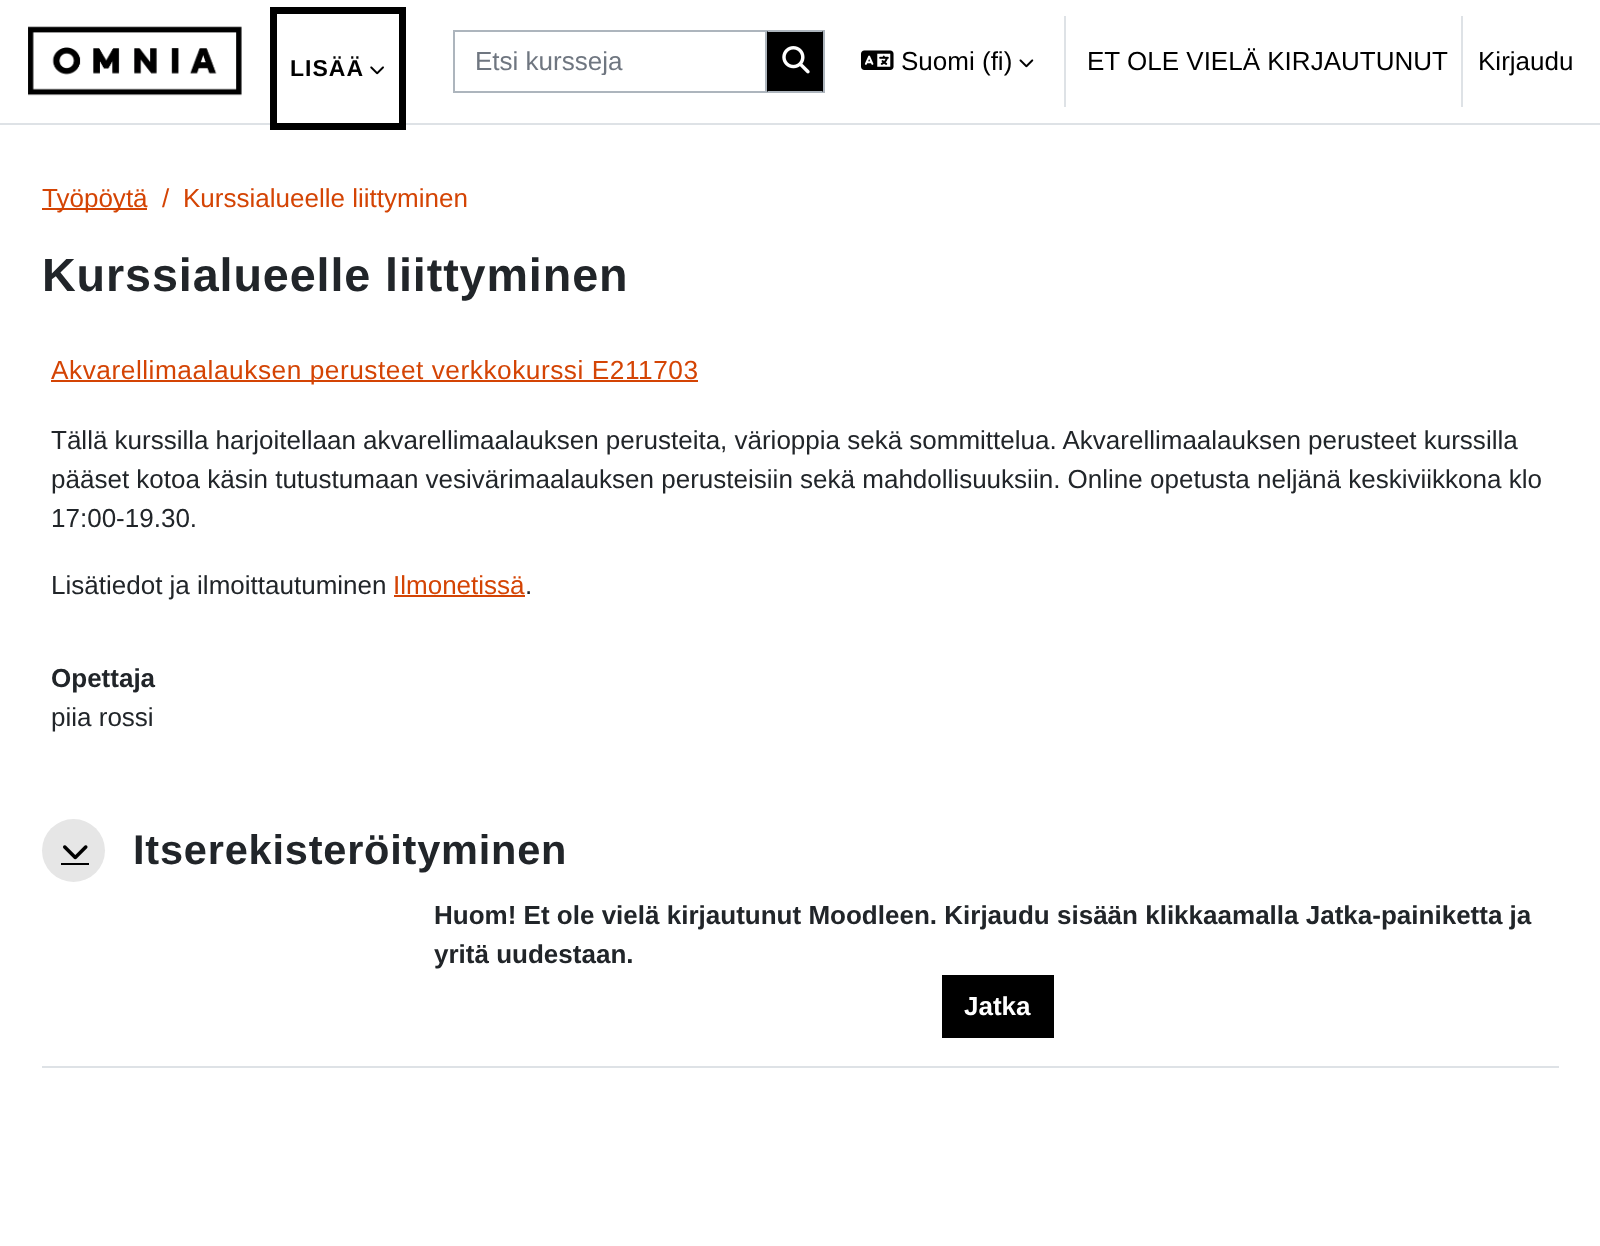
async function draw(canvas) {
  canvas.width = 1600;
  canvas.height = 1246;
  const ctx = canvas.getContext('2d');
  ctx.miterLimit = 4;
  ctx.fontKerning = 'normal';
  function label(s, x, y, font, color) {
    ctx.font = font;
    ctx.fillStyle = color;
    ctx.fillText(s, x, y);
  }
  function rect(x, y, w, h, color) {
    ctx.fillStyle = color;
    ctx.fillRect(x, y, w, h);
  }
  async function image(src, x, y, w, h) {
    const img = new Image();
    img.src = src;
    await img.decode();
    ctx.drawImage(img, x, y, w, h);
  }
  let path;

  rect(0, 0, 1600, 1246, '#fff');
  rect(0, 123, 1600, 2, '#dee2e6');
  await image('assets/img1.png', 28, 26, 214, 70);
  ctx.strokeStyle = '#000';
  ctx.lineWidth = 7;
  ctx.strokeRect(273.5, 10.5, 129, 116);
  ctx.letterSpacing = '1px';
  label('LISÄÄ', 290, 76, 'bold 23px Liberation Sans', '#000');
  await image('assets/img2.png', 370, 66, 14, 9);
  ctx.strokeStyle = '#adb5bd';
  ctx.lineWidth = 2;
  ctx.strokeRect(454, 31, 312, 61);
  ctx.save();
  ctx.beginPath();
  ctx.rect(476, 47, 268, 28);
  ctx.clip();
  ctx.letterSpacing = '0px';
  label('Etsi kursseja', 475, 70, '26.03px Liberation Sans', '#6f7680');
  ctx.restore();
  rect(767, 31, 56, 61, '#000');
  ctx.fillStyle = '#adb5bd';
  path = new Path2D('M766 30H824L822 32H768Z');
  ctx.fill(path);
  rect(823, 30, 2, 63, '#adb5bd');
  path = new Path2D('M824 93H766L768 91H822Z');
  ctx.fill(path);
  await image('assets/img3.png', 782, 46, 28, 28);
  await image('assets/img4.png', 861, 50, 33, 20);
  ctx.letterSpacing = '0px';
  label('Suomi (fi)', 901, 70, '26.03px Liberation Sans', '#000');
  await image('assets/img5.png', 1019, 59, 15, 9);
  rect(1064, 16, 2, 91, '#dee2e6');
  label('ET OLE VIELÄ KIRJAUTUNUT', 1087, 70, '26.03px Liberation Sans', '#000');
  rect(1461, 16, 2, 91, '#dee2e6');
  label('Kirjaudu', 1478, 70, '26.03px Liberation Sans', '#000');
  rect(42, 208, 105, 2, '#d44404');
  label('Työpöytä', 42, 207, '26.03px Liberation Sans', '#d44404');
  label('/', 162, 207, '26.03px Liberation Sans', '#d44404');
  label('Kurssialueelle liittyminen', 183, 207, '26.03px Liberation Sans', '#d44404');
  ctx.letterSpacing = '0.9px';
  label('Kurssialueelle liittyminen', 42, 291, 'bold 46.7px Liberation Sans', '#212529');
  rect(51, 380, 647, 2, '#d44404');
  ctx.letterSpacing = '0.53px';
  label('Akvarellimaalauksen perusteet verkkokurssi E211703', 51, 379, '26.25px Liberation Sans', '#d44404');
  ctx.letterSpacing = '0px';
  ctx.wordSpacing = '-0.1px';
  label('Tällä kurssilla harjoitellaan akvarellimaalauksen perusteita, värioppia sekä sommittelua. Akvarellimaalauksen perusteet kurssilla', 51, 449, '26.03px Liberation Sans', '#212529');
  ctx.wordSpacing = '0px';
  label('pääset kotoa käsin tutustumaan vesivärimaalauksen perusteisiin sekä mahdollisuuksiin. Online opetusta neljänä keskiviikkona klo', 51, 488, '26.03px Liberation Sans', '#212529');
  label('17:00-19.30.', 51, 527, '26.03px Liberation Sans', '#212529');
  label('Lisätiedot ja ilmoittautuminen', 51, 594, '26.03px Liberation Sans', '#212529');
  label('Ilmonetissä', 393, 594, '26.03px Liberation Sans', '#d44404');
  rect(394, 595, 131, 2, '#d44404');
  label('.', 525, 594, '26.03px Liberation Sans', '#212529');
  label('Opettaja', 51, 687, 'bold 26.03px Liberation Sans', '#212529');
  label('piia rossi', 51, 726, '26.03px Liberation Sans', '#212529');
  rect(42, 1066, 1517, 2, '#dee2e6');
  ctx.fillStyle = '#e6e6e6';
  ctx.beginPath();
  ctx.arc(73.5, 850.5, 31.5, 0, 2 * Math.PI);
  ctx.fill();
  await image('assets/img6.png', 63, 845, 25, 15);
  rect(61, 863, 28, 2, '#000');
  ctx.letterSpacing = '0.8px';
  label('Itserekisteröityminen', 133, 864, 'bold 41.5px Liberation Sans', '#212529');
  ctx.letterSpacing = '0px';
  label('Huom! Et ole vielä kirjautunut Moodleen. Kirjaudu sisään klikkaamalla Jatka-painiketta ja', 434, 924, 'bold 26.03px Liberation Sans', '#212529');
  label('yritä uudestaan.', 434, 963, 'bold 26.03px Liberation Sans', '#212529');
  rect(942, 975, 112, 63, '#000');
  label('Jatka', 964, 1015, 'bold 26.03px Liberation Sans', '#fff');
}

draw(document.querySelector('canvas'));
